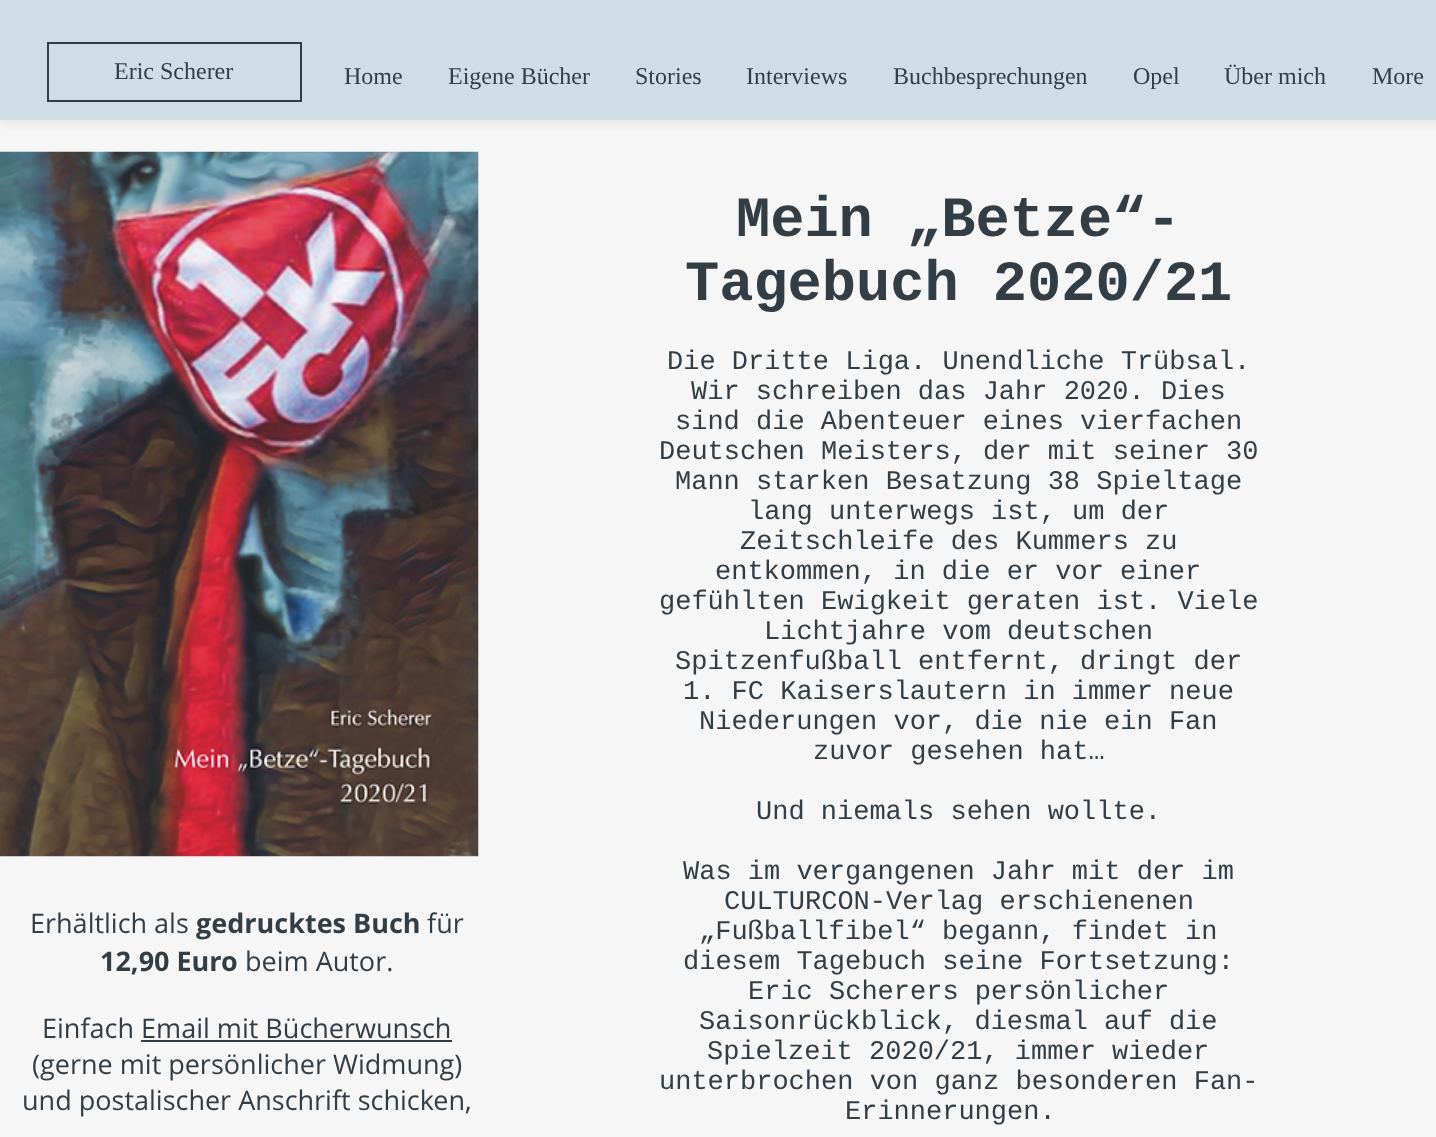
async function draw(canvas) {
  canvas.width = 1436;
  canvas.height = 1137;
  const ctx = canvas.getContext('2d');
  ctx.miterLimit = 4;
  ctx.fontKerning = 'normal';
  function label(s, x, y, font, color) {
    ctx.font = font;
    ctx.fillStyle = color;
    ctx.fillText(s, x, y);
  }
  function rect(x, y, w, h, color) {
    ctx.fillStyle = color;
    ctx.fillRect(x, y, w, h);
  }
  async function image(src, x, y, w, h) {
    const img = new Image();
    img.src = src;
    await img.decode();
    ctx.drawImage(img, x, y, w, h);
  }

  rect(0, 0, 1436, 1137, '#f6f6f7');
  ctx.fillStyle = '#0000000d';
  ctx.filter = 'blur(4px)';
  ctx.beginPath();
  ctx.rect(-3, -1, 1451, 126);
  ctx.fill();
  ctx.filter = 'none';
  rect(0, 0, 1436, 120, '#cfdee6');
  ctx.strokeStyle = '#323d46';
  ctx.lineWidth = 2;
  ctx.strokeRect(48, 43, 253, 58);
  label('Eric Scherer', 114, 79, '24px Liberation Serif', '#323d46');
  label('Home', 344, 84, '24px Liberation Serif', '#323d46');
  label('Eigene Bücher', 448, 84, '24px Liberation Serif', '#323d46');
  label('Stories', 635, 84, '24px Liberation Serif', '#323d46');
  label('Interviews', 746, 84, '24px Liberation Serif', '#323d46');
  label('Buchbesprechungen', 893, 84, '24px Liberation Serif', '#323d46');
  label('Opel', 1133, 84, '24px Liberation Serif', '#323d46');
  label('Über mich', 1224, 84, '24px Liberation Serif', '#323d46');
  label('More', 1372, 84, '24px Liberation Serif', '#323d46');
  await image('assets/img1.png', 0, 151, 479, 706);
  label('Mein „Betze“-', 736, 236, 'bold 57px Liberation Mono', '#323d46');
  label('Tagebuch 2020/21', 685, 300, 'bold 57px Liberation Mono', '#323d46');
  label('Die Dritte Liga. Unendliche Trübsal.', 667, 369, '27px Liberation Mono', '#323d46');
  label('Wir schreiben das Jahr 2020. Dies', 691, 399, '27px Liberation Mono', '#323d46');
  label('sind die Abenteuer eines vierfachen', 675, 429, '27px Liberation Mono', '#323d46');
  label('Deutschen Meisters, der mit seiner 30', 659, 459, '27px Liberation Mono', '#323d46');
  label('Mann starken Besatzung 38 Spieltage', 675, 489, '27px Liberation Mono', '#323d46');
  label('lang unterwegs ist, um der', 748, 519, '27px Liberation Mono', '#323d46');
  label('Zeitschleife des Kummers zu', 740, 549, '27px Liberation Mono', '#323d46');
  label('entkommen, in die er vor einer', 715, 579, '27px Liberation Mono', '#323d46');
  label('gefühlten Ewigkeit geraten ist. Viele', 659, 609, '27px Liberation Mono', '#323d46');
  label('Lichtjahre vom deutschen', 764, 639, '27px Liberation Mono', '#323d46');
  label('Spitzenfußball entfernt, dringt der', 675, 669, '27px Liberation Mono', '#323d46');
  label('1. FC Kaiserslautern in immer neue', 683, 699, '27px Liberation Mono', '#323d46');
  label('Niederungen vor, die nie ein Fan', 699, 729, '27px Liberation Mono', '#323d46');
  label('zuvor gesehen hat…', 813, 759, '27px Liberation Mono', '#323d46');
  label('Und niemals sehen wollte.', 756, 819, '27px Liberation Mono', '#323d46');
  label('Was im vergangenen Jahr mit der im', 683, 879, '27px Liberation Mono', '#323d46');
  label('CULTURCON-Verlag erschienenen', 724, 909, '27px Liberation Mono', '#323d46');
  label('„Fußballfibel“ begann, findet in', 699, 939, '27px Liberation Mono', '#323d46');
  label('diesem Tagebuch seine Fortsetzung:', 683, 969, '27px Liberation Mono', '#323d46');
  label('Eric Scherers persönlicher', 748, 999, '27px Liberation Mono', '#323d46');
  label('Saisonrückblick, diesmal auf die', 699, 1029, '27px Liberation Mono', '#323d46');
  label('Spielzeit 2020/21, immer wieder', 707, 1059, '27px Liberation Mono', '#323d46');
  label('unterbrochen von ganz besonderen Fan-', 659, 1089, '27px Liberation Mono', '#323d46');
  label('Erinnerungen.', 845, 1119, '27px Liberation Mono', '#323d46');
  label('Erhältlich als', 30, 933, '27px Open Sans', '#323d46');
  label('gedrucktes Buch', 196, 933, 'bold 27px Open Sans', '#323d46');
  label('für', 427, 933, '27px Open Sans', '#323d46');
  label('12,90 Euro', 100, 971, 'bold 27px Open Sans', '#323d46');
  label('beim Autor.', 245, 971, '27px Open Sans', '#323d46');
  label('Einfach Email mit Bücherwunsch', 42, 1038, '27px Open Sans', '#323d46');
  rect(141, 1040, 311, 2, '#323d46');
  label('(gerne mit persönlicher Widmung)', 32, 1074, '27px Open Sans', '#323d46');
  label('und postalischer Anschrift schicken,', 22, 1110, '27px Open Sans', '#323d46');
}

draw(document.querySelector('canvas'));
